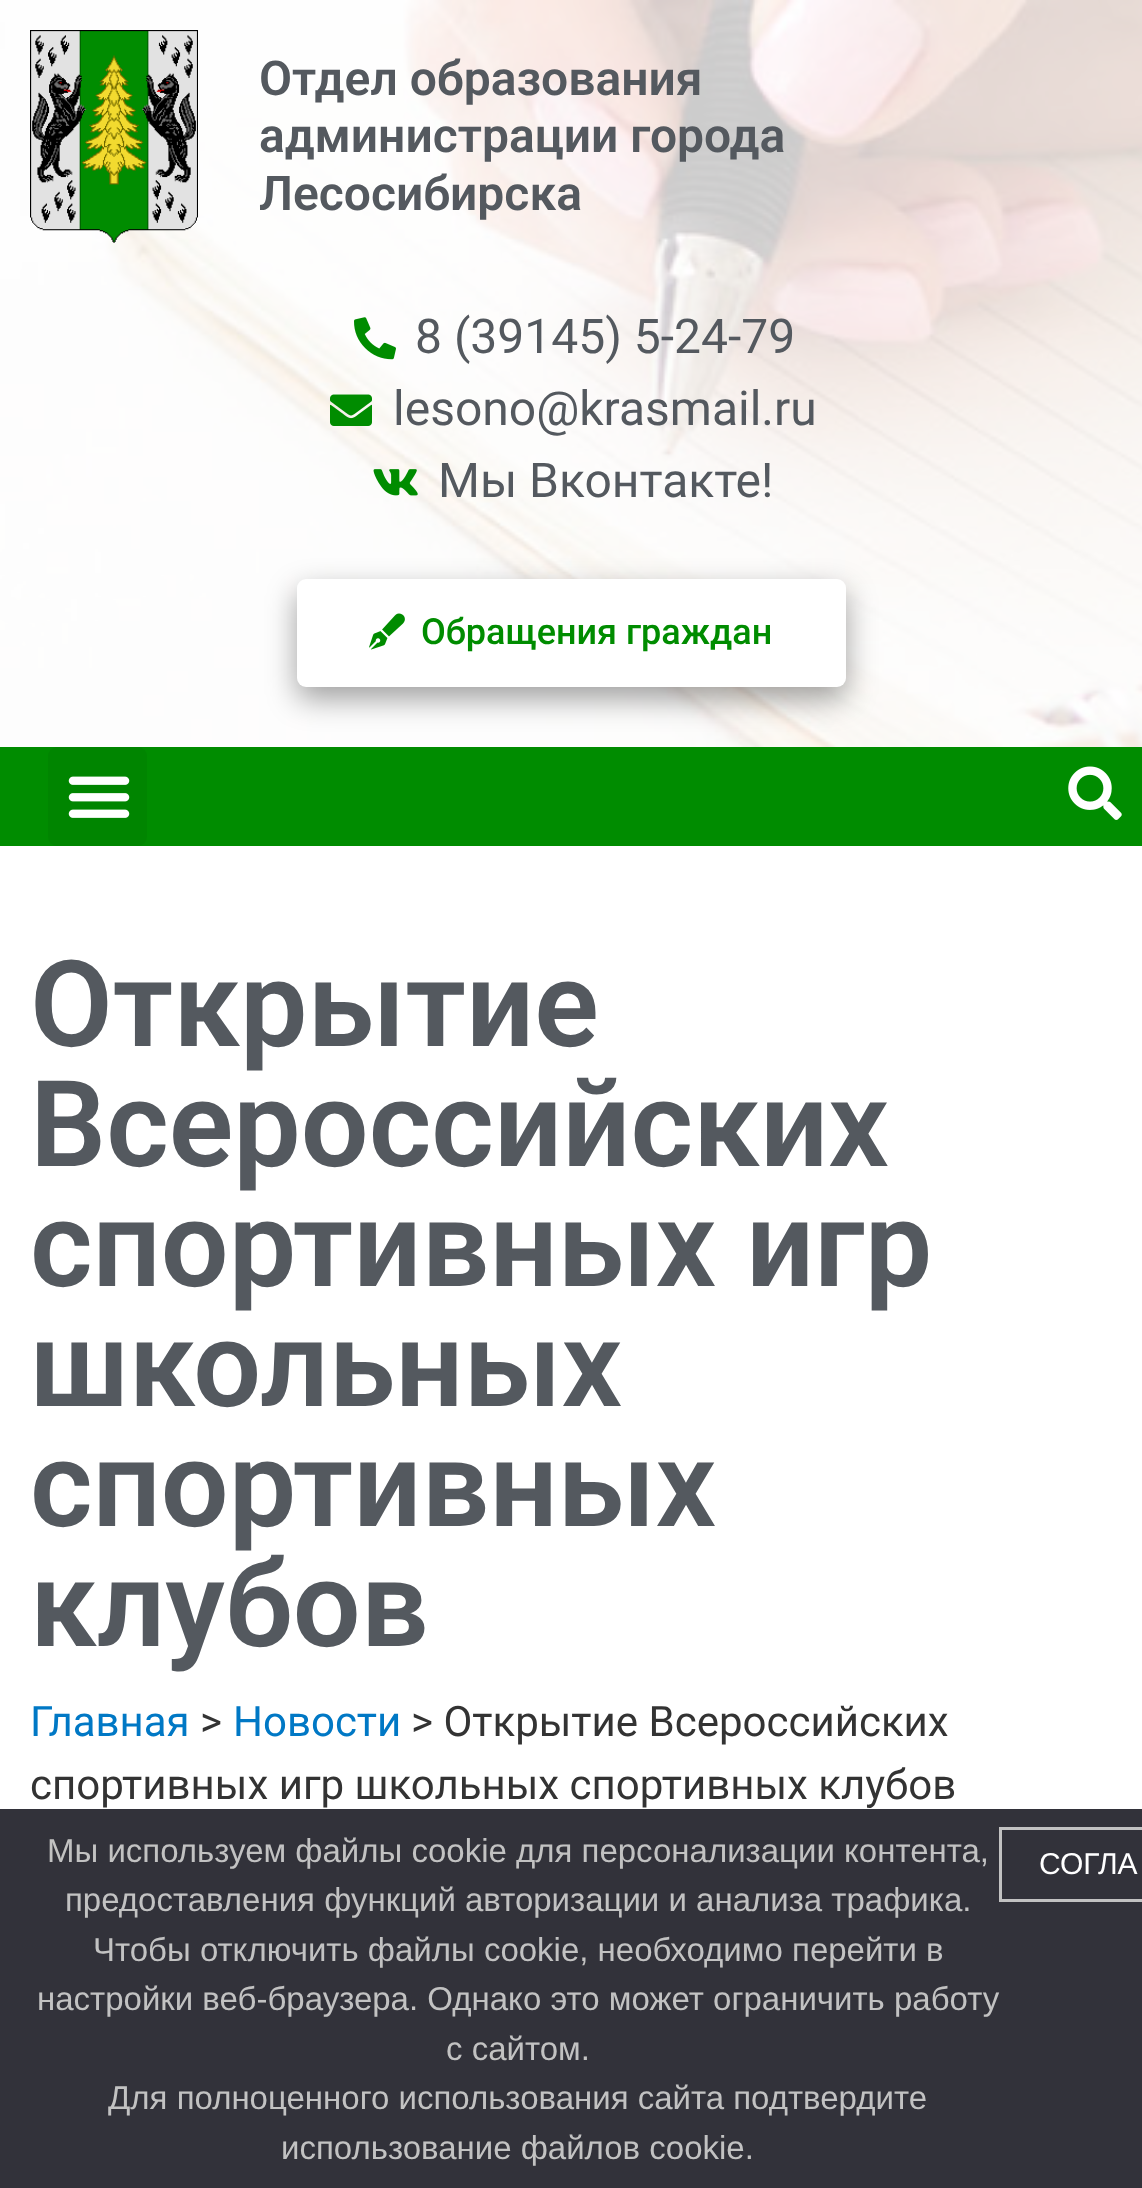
async function draw(canvas) {
  canvas.width = 1142;
  canvas.height = 2188;
  const ctx = canvas.getContext('2d');
  ctx.miterLimit = 4;
  ctx.fontKerning = 'normal';
  function label(s, x, y, font, color) {
    ctx.font = font;
    ctx.fillStyle = color;
    ctx.fillText(s, x, y);
  }
  function rect(x, y, w, h, color) {
    ctx.fillStyle = color;
    ctx.fillRect(x, y, w, h);
  }
  function roundedRect(x, y, w, h, r, color) {
    ctx.fillStyle = color;
    ctx.beginPath();
    ctx.roundRect(x, y, w, h, r);
    ctx.fill();
  }
  async function image(src, x, y, w, h) {
    const img = new Image();
    img.src = src;
    await img.decode();
    ctx.drawImage(img, x, y, w, h);
  }

  rect(0, 0, 1142, 2188, '#fff');
  await image('assets/img1.png', 0, 0, 1142, 747);
  await image('assets/img2.png', 30, 30, 168, 213);
  label('Отдел образования', 259, 95, '600 48px Roboto', '#54595f');
  label('администрации города', 259, 152, '600 48px Roboto', '#54595f');
  label('Лесосибирска', 259, 210, '600 48px Roboto', '#54595f');
  await image('assets/img3.png', 354, 317, 42, 43);
  label('8 (39145) 5-24-79', 415, 353, '48px Roboto', '#54595f');
  await image('assets/img4.png', 330, 394, 42, 32);
  label('lesono@krasmail.ru', 393, 425, '48px Roboto', '#54595f');
  await image('assets/img5.png', 373, 469, 45, 27);
  label('Мы Вконтакте!', 438, 497, '48px Roboto', '#54595f');
  ctx.fillStyle = '#0000005e';
  ctx.filter = 'blur(15px)';
  ctx.beginPath();
  ctx.roundRect(297, 591, 549, 108, 9);
  ctx.fill();
  ctx.filter = 'none';
  roundedRect(297, 579, 549, 108, 9, '#fff');
  await image('assets/img6.png', 369, 613, 36, 37);
  label('Обращения граждан', 421, 644, '500 36px Roboto', '#008c00');
  rect(0, 747, 1142, 99, '#008c00');
  roundedRect(48, 747, 99, 99, 9, '#008500');
  await image('assets/img7.png', 68, 776, 62, 42);
  await image('assets/img8.png', 1068, 766, 54, 54);
  label('Открытие', 30, 1046, '600 120px Roboto', '#54595f');
  label('Всероссийских', 30, 1166, '600 120px Roboto', '#54595f');
  label('спортивных игр', 30, 1286, '600 120px Roboto', '#54595f');
  label('школьных', 30, 1406, '600 120px Roboto', '#54595f');
  label('спортивных', 30, 1526, '600 120px Roboto', '#54595f');
  label('клубов', 30, 1646, '600 120px Roboto', '#54595f');
  label('Главная', 30, 1736, '42px Roboto', '#0078c5');
  label('>', 200, 1736, '42px Roboto', '#333');
  label('Новости', 233, 1736, '42px Roboto', '#0078c5');
  label('> Открытие Всероссийских', 411, 1736, '42px Roboto', '#333');
  label('спортивных игр школьных спортивных клубов', 30, 1799, '42px Roboto', '#333');
  rect(0, 1809, 1142, 379, '#32323a');
  label('Мы используем файлы cookie для персонализации контента,', 47, 1862, '33px Liberation Sans', '#c2c2c2');
  label('предоставления функций авторизации и анализа трафика.', 65, 1911, '33px Liberation Sans', '#c2c2c2');
  label('Чтобы отключить файлы cookie, необходимо перейти в', 93, 1961, '33px Liberation Sans', '#c2c2c2');
  label('настройки веб-браузера. Однако это может ограничить работу', 37, 2010, '33px Liberation Sans', '#c2c2c2');
  label('с сайтом.', 446, 2060, '33px Liberation Sans', '#c2c2c2');
  label('Для полноценного использования сайта подтвердите', 108, 2109, '33px Liberation Sans', '#c2c2c2');
  label('использование файлов cookie.', 281, 2159, '33px Liberation Sans', '#c2c2c2');
  ctx.strokeStyle = '#c2c2c2';
  ctx.lineWidth = 3;
  ctx.strokeRect(1000.5, 1828.5, 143, 72);
  label('СОГЛА', 1039, 1874, '30px Liberation Sans', '#fff');
}

draw(document.querySelector('canvas'));
